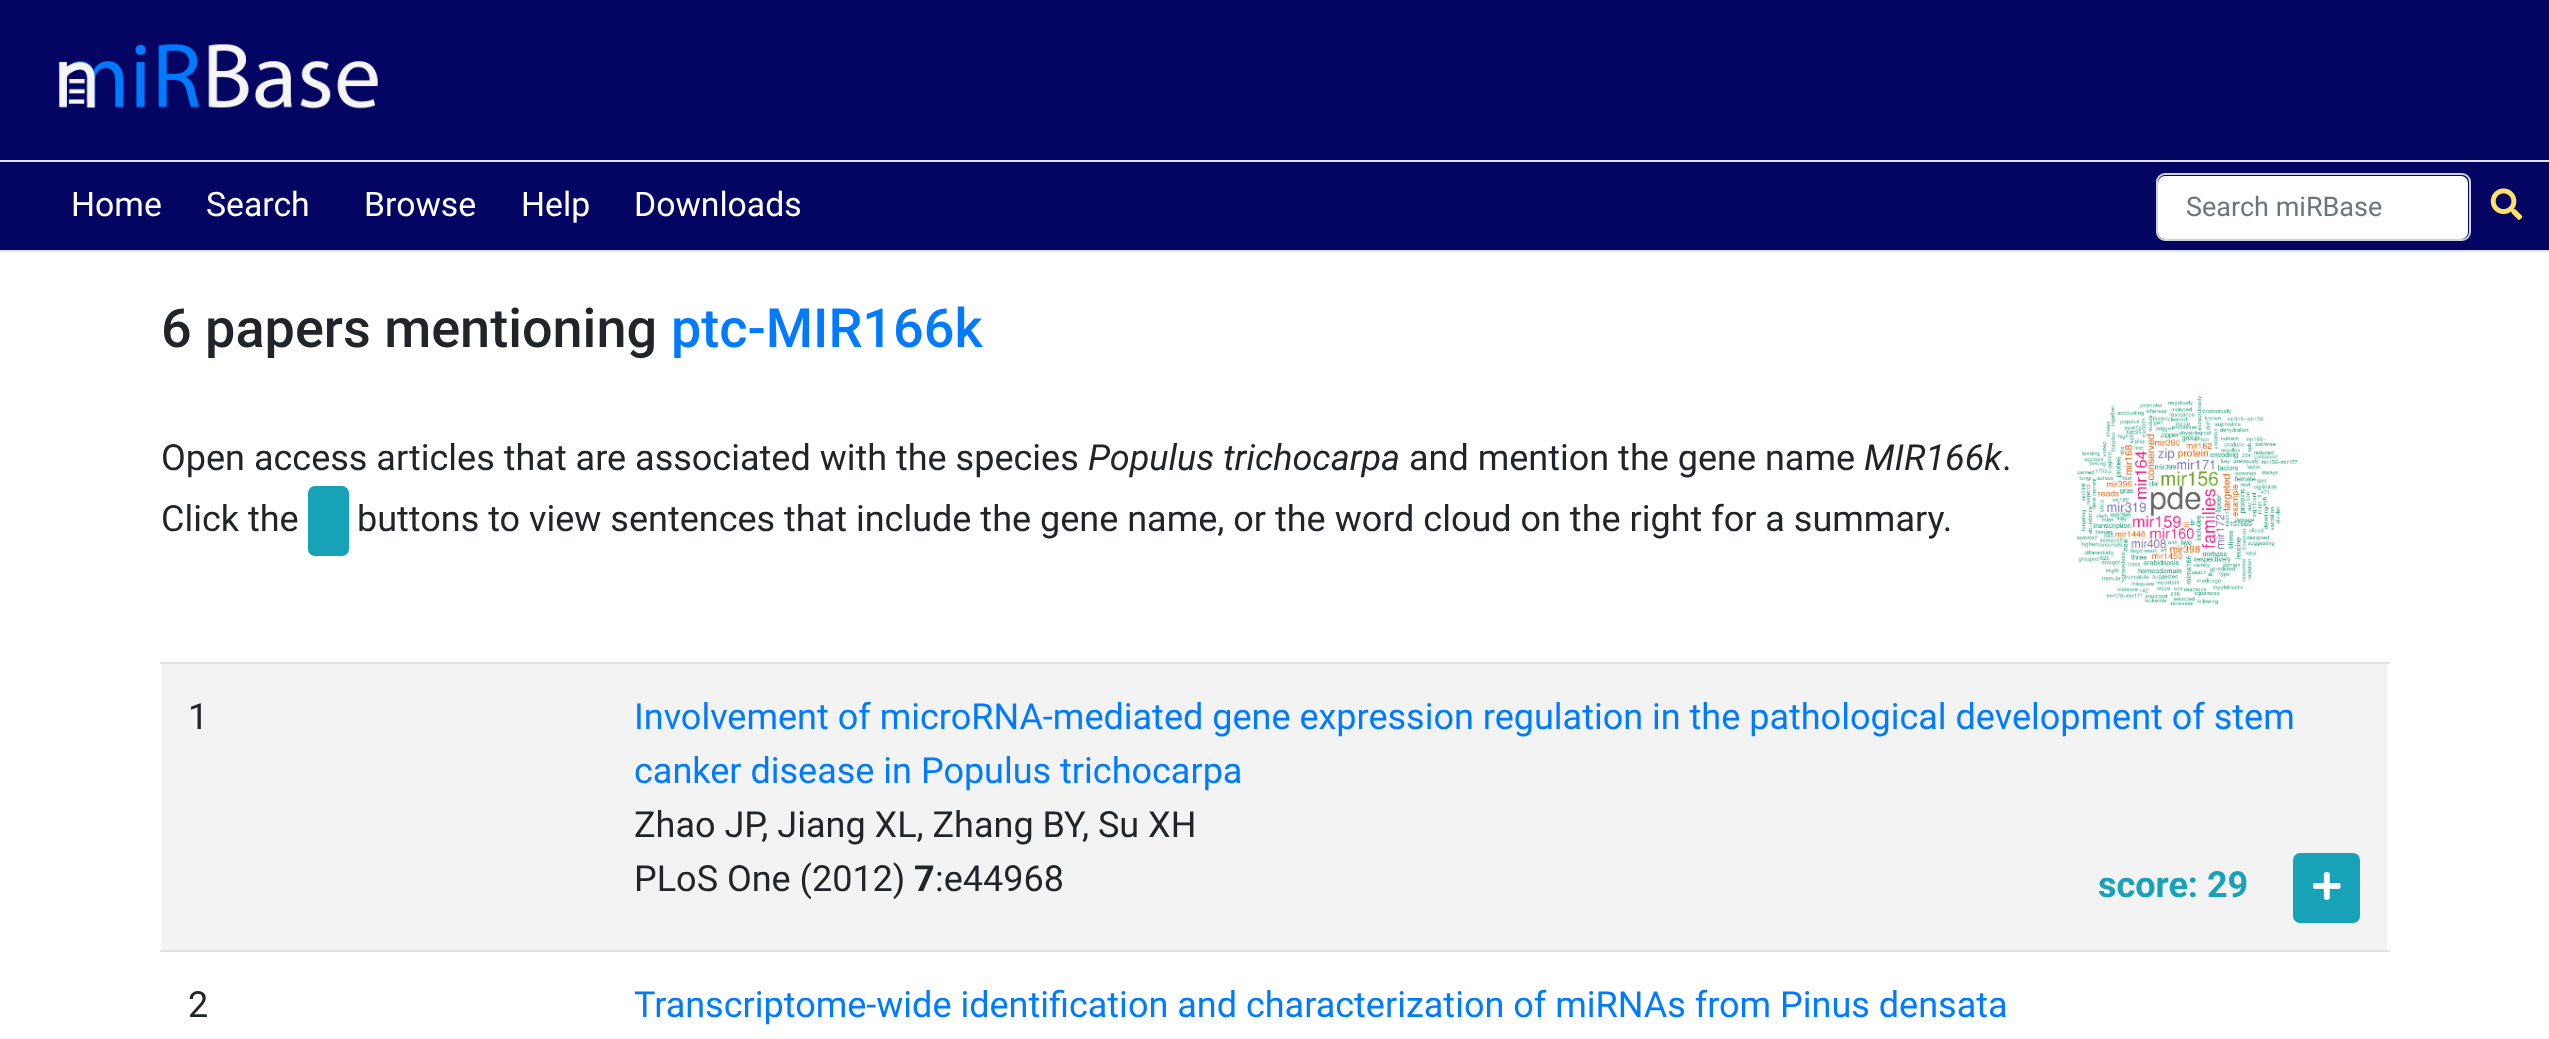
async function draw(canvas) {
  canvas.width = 2549;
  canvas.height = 1039;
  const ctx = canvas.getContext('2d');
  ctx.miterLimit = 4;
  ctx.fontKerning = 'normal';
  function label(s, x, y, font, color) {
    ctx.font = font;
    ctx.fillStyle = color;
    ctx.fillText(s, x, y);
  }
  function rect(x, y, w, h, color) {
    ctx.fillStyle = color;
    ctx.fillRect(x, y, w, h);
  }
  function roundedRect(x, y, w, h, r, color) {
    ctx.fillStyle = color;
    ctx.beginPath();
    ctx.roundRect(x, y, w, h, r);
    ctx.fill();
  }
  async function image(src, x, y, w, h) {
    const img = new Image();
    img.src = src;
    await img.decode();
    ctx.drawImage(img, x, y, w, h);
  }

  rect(0, 0, 2549, 1039, '#fff');
  rect(0, 0, 2549, 160, '#040562');
  rect(0, 160, 2549, 2, '#dee2e6');
  await image('assets/img1.png', 58, 44, 320, 65);
  rect(0, 162, 2549, 88, '#040562');
  rect(0, 250, 2549, 2, '#dee2e6');
  label('Home', 71, 216, '33.75px Roboto', '#fff');
  label('Search', 206, 216, '33.75px Roboto', '#fff');
  label('Browse', 364, 216, '33.75px Roboto', '#fff');
  label('Help', 521, 216, '33.75px Roboto', '#fff');
  label('Downloads', 634, 216, '33.75px Roboto', '#fff');
  roundedRect(2158, 176, 310, 63, 7, '#fff');
  ctx.beginPath();
  ctx.roundRect(2157, 174, 313, 66, 8);
  ctx.strokeStyle = '#ced4da';
  ctx.lineWidth = 2;
  ctx.stroke();
  label('Search miRBase', 2186, 216, '27px Roboto', '#6c757d');
  await image('assets/img2.png', 2490, 188, 33, 32);
  label('6 papers mentioning', 161, 347, '500 54px Roboto', '#212529');
  label('ptc-MIR166k', 671, 347, '500 54px Roboto', '#007bff');
  label('Open access articles that are associated with the species', 161, 470, '36px Roboto', '#212529');
  label('Populus trichocarpa', 1088, 470, 'italic 36px Roboto', '#212529');
  label('and mention the gene name', 1409, 470, '36px Roboto', '#212529');
  label('MIR166k', 1864, 470, 'italic 36px Roboto', '#212529');
  label('.', 2002, 470, '36px Roboto', '#212529');
  label('Click the', 161, 531, '36px Roboto', '#212529');
  ctx.fillStyle = '#17a2b8';
  ctx.beginPath();
  ctx.roundRect(309, 487, 39, 68, 6);
  ctx.fill();
  ctx.strokeStyle = '#17a2b8';
  ctx.stroke();
  label('buttons to view sentences that include the gene name, or the word cloud on the right for a summary.', 357, 531, '36px Roboto', '#212529');
  await image('assets/img3.png', 2076, 396, 222, 210);
  rect(162, 664, 2225, 286, '#f3f3f3');
  label('1', 188, 729, '36px Roboto', '#212529');
  rect(160, 662, 2230, 2, '#dee2e6');
  label('Involvement of microRNA-mediated gene expression regulation in the pathological development of stem', 634, 729, '36px Roboto', '#007bff');
  label('canker disease in Populus trichocarpa', 634, 783, '36px Roboto', '#007bff');
  label('Zhao JP, Jiang XL, Zhang BY, Su XH', 634, 837, '36px Roboto', '#212529');
  label('PLoS One (2012)', 634, 891, '36px Roboto', '#212529');
  label('7', 914, 891, 'bold 36px Roboto', '#212529');
  label(':e44968', 935, 891, '36px Roboto', '#212529');
  label('score: 29', 2098, 897, 'bold 36px Roboto', '#17a2b8');
  ctx.beginPath();
  ctx.roundRect(2294, 854, 65, 68, 6);
  ctx.fill();
  ctx.stroke();
  await image('assets/img4.png', 2313, 872, 28, 28);
  label('2', 188, 1017, '36px Roboto', '#212529');
  rect(160, 950, 2230, 2, '#dee2e6');
  label('Transcriptome-wide identification and characterization of miRNAs from Pinus densata', 634, 1017, '36px Roboto', '#007bff');
}

draw(document.querySelector('canvas'));
